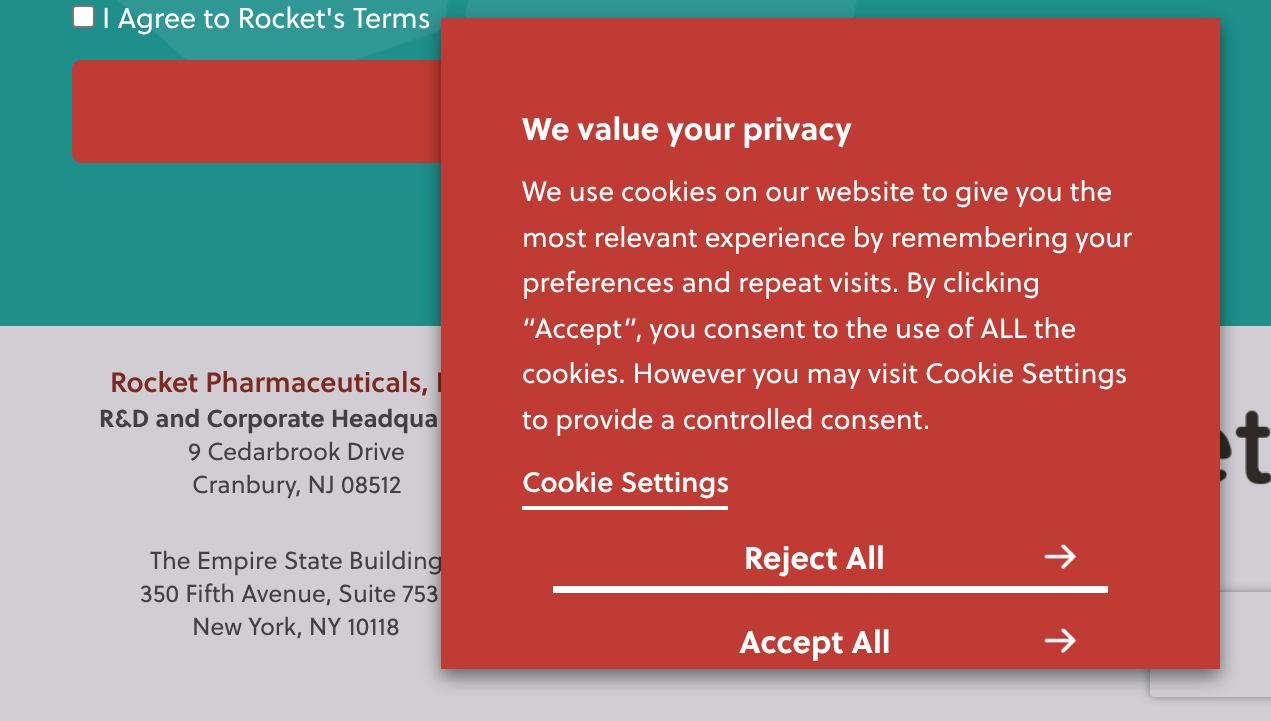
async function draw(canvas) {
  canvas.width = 1271;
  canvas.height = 721;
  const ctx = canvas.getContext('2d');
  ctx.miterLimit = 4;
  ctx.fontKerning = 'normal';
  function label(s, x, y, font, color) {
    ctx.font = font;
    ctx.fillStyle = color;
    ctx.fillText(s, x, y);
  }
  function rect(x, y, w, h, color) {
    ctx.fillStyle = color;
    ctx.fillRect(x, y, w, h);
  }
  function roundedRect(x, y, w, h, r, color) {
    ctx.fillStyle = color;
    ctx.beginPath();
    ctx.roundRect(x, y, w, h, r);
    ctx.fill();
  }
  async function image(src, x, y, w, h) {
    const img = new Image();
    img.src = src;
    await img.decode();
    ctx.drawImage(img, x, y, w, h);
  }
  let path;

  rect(0, 0, 1271, 721, '#d0ced2');
  rect(0, 0, 1271, 326, '#1e8f8b');
  await image('assets/img1.png', 117, 0, 740, 60);
  ctx.fillStyle = '#fff';
  ctx.beginPath();
  ctx.roundRect(73, 6, 21, 21, 3);
  ctx.fill();
  ctx.strokeStyle = '#767676';
  ctx.lineWidth = 2;
  ctx.stroke();
  label('I Agree to Rocket\'s Terms', 102, 28, '28.75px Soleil', '#fff');
  roundedRect(72, 60, 1129, 103, 9, '#c03b34');
  ctx.save();
  path = new Path2D('M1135 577H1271V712H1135ZM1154 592H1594C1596 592 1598 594 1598 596V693C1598 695 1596 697 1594 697H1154C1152 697 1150 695 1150 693V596C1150 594 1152 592 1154 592Z');
  ctx.clip(path, 'evenodd');
  ctx.fillStyle = '#808080';
  ctx.filter = 'blur(4.5px)';
  ctx.beginPath();
  ctx.roundRect(1150, 592, 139, 105, 4);
  ctx.fill();
  ctx.filter = 'none';
  ctx.restore();
  label('Rocket Pharmaceuticals, I', 110, 392, '600 28px Soleil', '#802722');
  label('R&D and Corporate Headqua', 99, 427, 'bold 24.5px Soleil', '#414042');
  label('9 Cedarbrook Drive', 188, 460, '24.5px Soleil', '#414042');
  label('Cranbury, NJ 08512', 192, 493, '24.5px Soleil', '#414042');
  label('The Empire State Building', 150, 569, '24.5px Soleil', '#414042');
  label('350 Fifth Avenue, Suite 753', 140, 602, '24.5px Soleil', '#414042');
  label('New York, NY 10118', 192, 635, '24.5px Soleil', '#414042');
  await image('assets/img2.png', 1220, 410, 51, 75);
  ctx.fillStyle = '#00000080';
  ctx.filter = 'blur(9px)';
  ctx.beginPath();
  ctx.rect(441, 26, 779, 651);
  ctx.fill();
  ctx.filter = 'none';
  rect(441, 18, 779, 651, '#c03b34');
  label('We value your privacy', 522, 140, 'bold 31.5px Soleil', '#fff');
  label('We use cookies on our website to give you the', 522, 201, '28px Soleil', '#fff');
  label('most relevant experience by remembering your', 522, 247, '28px Soleil', '#fff');
  label('preferences and repeat visits. By clicking', 522, 292, '28px Soleil', '#fff');
  label('“Accept”, you consent to the use of ALL the', 522, 338, '28px Soleil', '#fff');
  label('cookies. However you may visit Cookie Settings', 522, 383, '28px Soleil', '#fff');
  label('to provide a controlled consent.', 522, 429, '28px Soleil', '#fff');
  rect(522, 506, 206, 4, '#fff');
  label('Cookie Settings', 522, 492, '600 28px Soleil', '#fff');
  rect(553, 586, 555, 7, '#fff');
  label('Reject All', 744, 569, 'bold 31.5px Soleil', '#fff');
  await image('assets/img3.png', 1044, 544, 33, 25);
  label('Accept All', 739, 653, 'bold 31.5px Soleil', '#fff');
  await image('assets/img3.png', 1044, 628, 33, 25);
}

draw(document.querySelector('canvas'));
